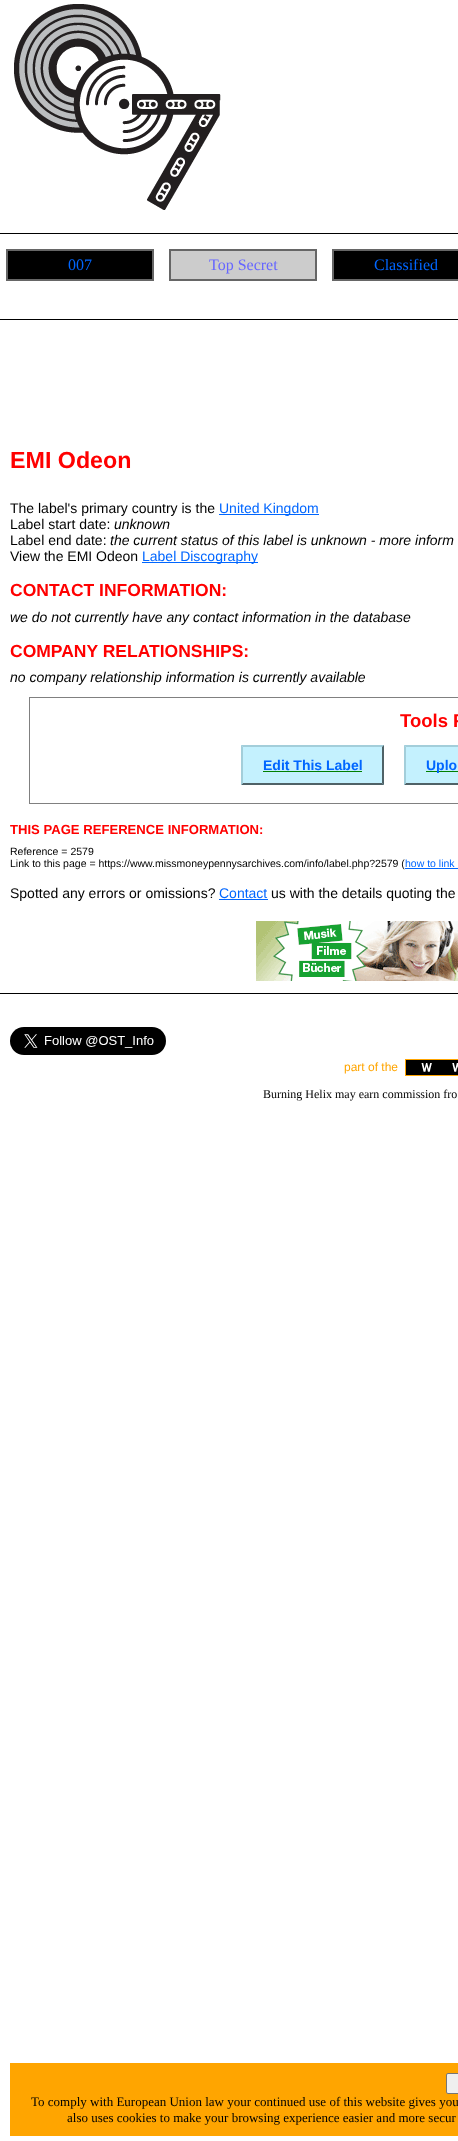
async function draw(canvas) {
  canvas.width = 458;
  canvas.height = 2141;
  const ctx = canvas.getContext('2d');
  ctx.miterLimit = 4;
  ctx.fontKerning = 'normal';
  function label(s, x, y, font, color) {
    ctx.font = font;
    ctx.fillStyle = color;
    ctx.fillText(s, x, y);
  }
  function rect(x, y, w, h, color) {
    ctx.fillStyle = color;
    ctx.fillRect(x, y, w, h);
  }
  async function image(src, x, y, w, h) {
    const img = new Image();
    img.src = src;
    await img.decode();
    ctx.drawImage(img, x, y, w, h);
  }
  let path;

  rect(0, 0, 458, 2141, '#fff');
  await image('assets/img1.png', 14, 4, 207, 206);
  rect(0, 233, 458, 1, '#000');
  ctx.beginPath();
  ctx.rect(7, 250, 146, 30);
  ctx.fill();
  ctx.strokeStyle = '#666';
  ctx.lineWidth = 2;
  ctx.stroke();
  label('007', 68, 270, '16px Liberation Serif', '#06f');
  ctx.fillStyle = '#ccc';
  ctx.beginPath();
  ctx.rect(170, 250, 146, 30);
  ctx.fill();
  ctx.stroke();
  label('Top Secret', 209, 270, '16px Liberation Serif', '#66f');
  ctx.fillStyle = '#000';
  ctx.beginPath();
  ctx.rect(333, 250, 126, 30);
  ctx.fill();
  ctx.stroke();
  label('Classified', 374, 270, '16px Liberation Serif', '#06f');
  rect(0, 319, 458, 1, '#000');
  label('EMI Odeon', 10, 468, 'bold 23.25px Liberation Sans', '#f00');
  label('The label\'s primary country is the', 10, 513, '14px Liberation Sans', '#000');
  rect(219, 514, 100, 1, '#06f');
  label('United Kingdom', 219, 513, '14px Liberation Sans', '#06f');
  label('Label start date:', 10, 529, '14px Liberation Sans', '#000');
  label('unknown', 114, 529, 'italic 14px Liberation Sans', '#000');
  label('Label end date:', 10, 545, '14px Liberation Sans', '#000');
  label('the current status of this label is unknown - more inform', 110, 545, 'italic 14px Liberation Sans', '#000');
  label('View the EMI Odeon', 10, 561, '14px Liberation Sans', '#000');
  rect(142, 562, 116, 1, '#06f');
  label('Label Discography', 142, 561, '14px Liberation Sans', '#06f');
  label('CONTACT INFORMATION:', 10, 596, 'bold 17.5px Liberation Sans', '#f00');
  label('we do not currently have any contact information in the database', 10, 622, 'italic 14px Liberation Sans', '#000');
  label('COMPANY RELATIONSHIPS:', 10, 657, 'bold 17.5px Liberation Sans', '#f00');
  label('no company relationship information is currently available', 10, 682, 'italic 14px Liberation Sans', '#000');
  ctx.strokeStyle = '#808080';
  ctx.lineWidth = 1;
  ctx.strokeRect(29.5, 697.5, 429, 106);
  label('Tools F', 400, 727, 'bold 18.5px Liberation Sans', '#f00');
  rect(241, 745, 143, 40, '#c4f1fe');
  label('Edit This Label', 263, 770, 'bold 14px Liberation Sans', '#06f');
  ctx.fillStyle = '#a3ceda';
  path = new Path2D('M241 745H384L382 747H243Z');
  ctx.fill(path);
  ctx.fillStyle = '#4f6267';
  path = new Path2D('M384 745V785L382 783V747Z');
  ctx.fill(path);
  path = new Path2D('M384 785H241L243 783H382Z');
  ctx.fill(path);
  ctx.fillStyle = '#a3ceda';
  path = new Path2D('M241 785V745L243 747V783Z');
  ctx.fill(path);
  rect(263, 771, 99, 1, '#008000');
  rect(404, 745, 54, 40, '#c4f1fe');
  rect(426, 771, 32, 1, '#008000');
  label('Uplo', 426, 770, 'bold 14px Liberation Sans', '#06f');
  ctx.fillStyle = '#a3ceda';
  path = new Path2D('M404 745H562L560 747H406Z');
  ctx.fill(path);
  ctx.fillStyle = '#4f6267';
  path = new Path2D('M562 785H404L406 783H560Z');
  ctx.fill(path);
  ctx.fillStyle = '#a3ceda';
  path = new Path2D('M404 785V745L406 747V783Z');
  ctx.fill(path);
  label('THIS PAGE REFERENCE INFORMATION:', 10, 834, 'bold 13.1px Liberation Sans', '#f00');
  label('Reference = 2579', 10, 855, '10.5px Liberation Sans', '#000');
  label('Link to this page = https://www.missmoneypennysarchives.com/info/label.php?2579 (', 10, 867, '10.5px Liberation Sans', '#000');
  label('how to link', 405, 867, '10.5px Liberation Sans', '#06f');
  rect(405, 868, 53, 1, '#06f');
  label('Spotted any errors or omissions?', 10, 898, '14px Liberation Sans', '#000');
  label('Contact', 219, 898, '14px Liberation Sans', '#06f');
  rect(219, 899, 49, 1, '#06f');
  label('us with the details quoting the', 271, 898, '14px Liberation Sans', '#000');
  await image('assets/img2.png', 256, 921, 202, 60);
  rect(0, 993, 458, 1, '#000');
  await image('assets/img3.png', 10, 1027, 156, 28);
  ctx.strokeStyle = '#ffa500';
  ctx.strokeRect(405.5, 1059.5, 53, 16);
  label('part of the', 344, 1071, '12px Liberation Sans', '#ffa500');
  await image('assets/img4.png', 406, 1060, 52, 15);
  label('Burning Helix may earn commission fro', 263, 1098, '12px Liberation Serif', '#000');
  rect(10, 2063, 448, 73, '#ffa500');
  ctx.fillStyle = '#efefef';
  ctx.beginPath();
  ctx.roundRect(446.5, 2073.5, 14, 20, 1.5);
  ctx.fill();
  ctx.strokeStyle = '#767676';
  ctx.stroke();
  label('To comply with European Union law your continued use of this website gives you', 31, 2106, '13px Liberation Serif', '#000');
  label('also uses cookies to make your browsing experience easier and more secur', 67, 2122, '13px Liberation Serif', '#000');
}

draw(document.querySelector('canvas'));
